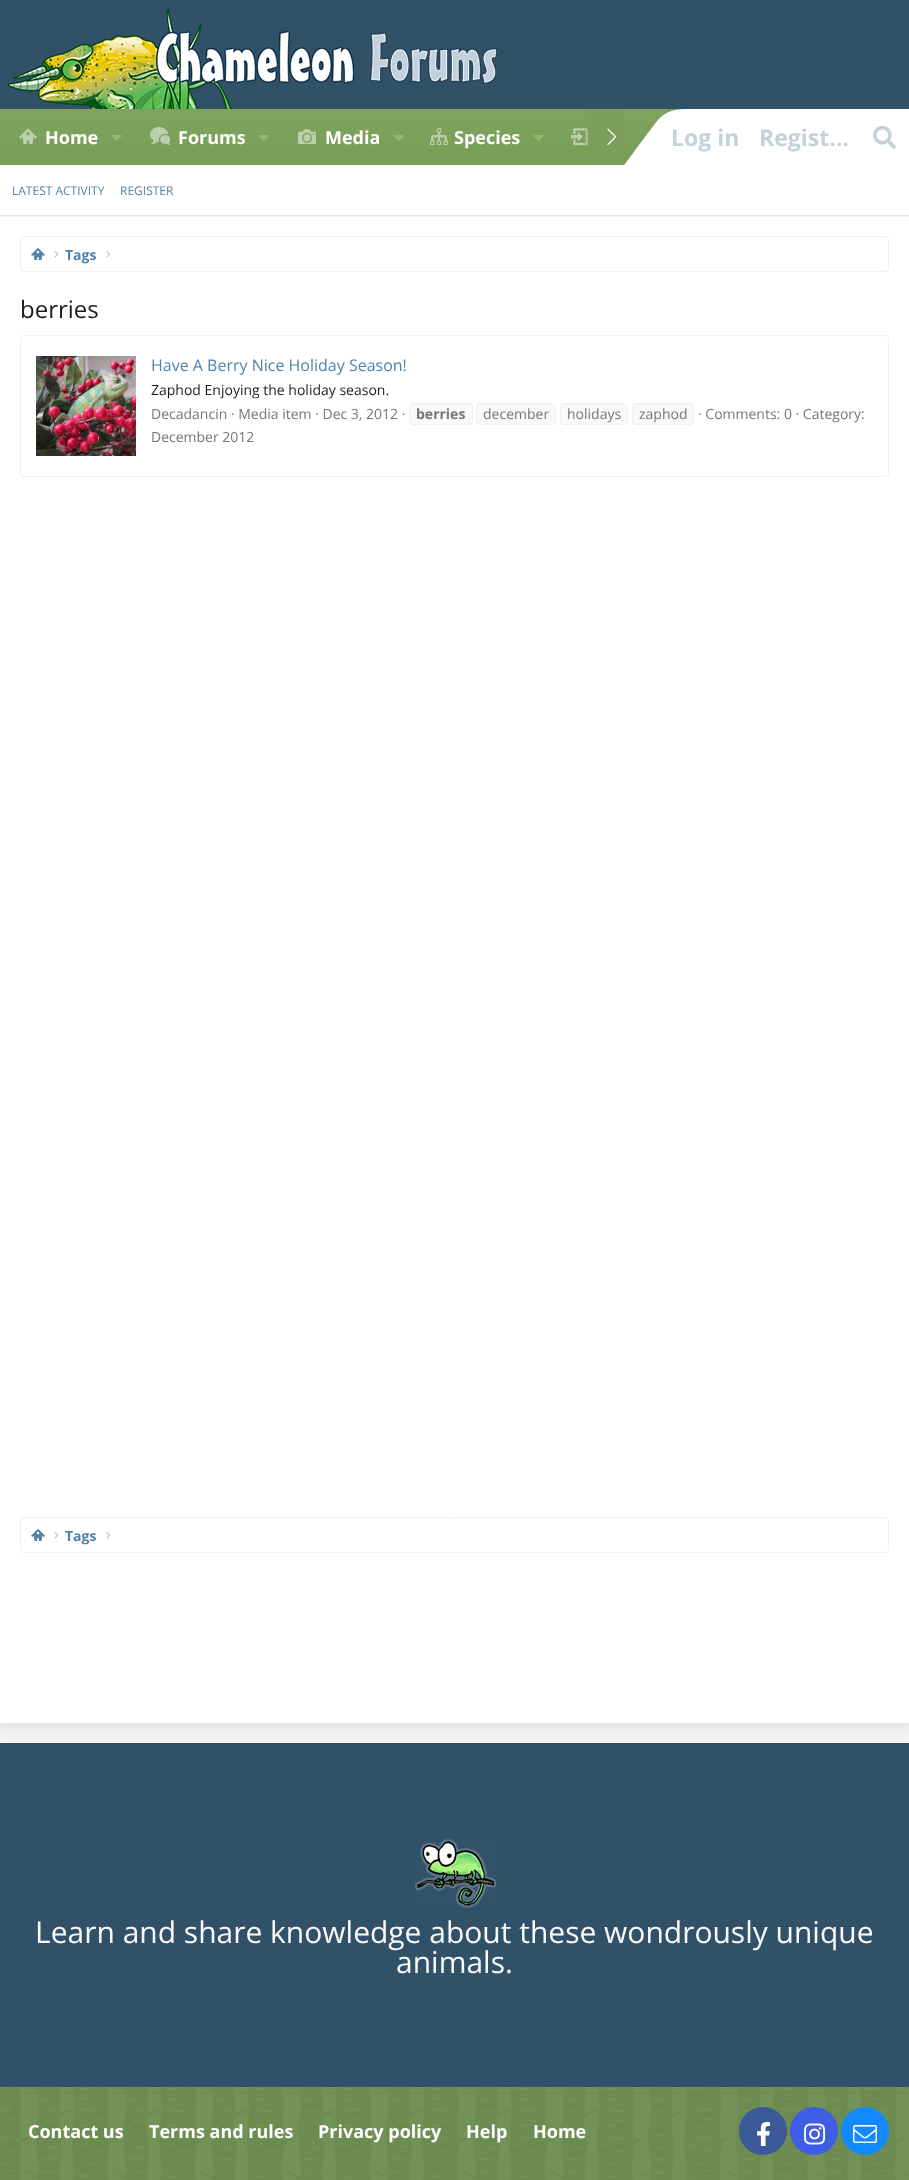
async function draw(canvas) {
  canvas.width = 909;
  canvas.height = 2180;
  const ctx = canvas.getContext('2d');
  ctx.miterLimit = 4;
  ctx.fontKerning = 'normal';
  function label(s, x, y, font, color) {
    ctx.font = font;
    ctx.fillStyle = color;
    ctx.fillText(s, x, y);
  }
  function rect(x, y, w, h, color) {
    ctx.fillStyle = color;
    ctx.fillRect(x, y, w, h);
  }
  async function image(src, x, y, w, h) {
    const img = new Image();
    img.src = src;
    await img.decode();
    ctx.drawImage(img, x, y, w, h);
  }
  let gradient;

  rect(0, 0, 909, 2180, '#f3f3f3');
  rect(0, 0, 909, 109, '#315169');
  await image('assets/img1.png', 8, 8, 490, 101);
  gradient = ctx.createLinearGradient(455, 109, 455, 165);
  gradient.addColorStop(0, '#80a360');
  gradient.addColorStop(1, '#769e54');
  ctx.fillStyle = gradient;
  ctx.fillRect(0, 109, 685, 56);
  await image('assets/img2.png', 19, 128, 18, 16);
  label('Home', 45, 144, 'bold 18px Open Sans', '#fff');
  await image('assets/img3.png', 111, 135, 11, 6);
  await image('assets/img4.png', 150, 127, 21, 19);
  label('Forums', 178, 144, 'bold 18px Open Sans', '#fff');
  await image('assets/img3.png', 258, 135, 11, 6);
  await image('assets/img5.png', 298, 129, 18, 15);
  label('Media', 325, 144, 'bold 18px Open Sans', '#fff');
  await image('assets/img3.png', 393, 135, 11, 6);
  await image('assets/img6.png', 430, 128, 18, 18);
  label('Species', 454, 144, 'bold 18px Open Sans', '#fff');
  await image('assets/img3.png', 533, 135, 11, 6);
  await image('assets/img7.png', 571, 128, 17, 18);
  gradient = ctx.createLinearGradient(583, 137, 623, 137);
  gradient.addColorStop(0, '#7a9f5b00');
  gradient.addColorStop(0.33, '#7a9f5b');
  ctx.fillStyle = gradient;
  ctx.fillRect(583, 109, 40, 56);
  await image('assets/img8.png', 607, 128, 10, 18);
  await image('assets/img9.png', 624, 109, 285, 56);
  label('Log in', 671, 146, 'bold 23px Open Sans', '#c3d1db');
  label('Regist…', 759, 146, 'bold 23px Open Sans', '#c3d1db');
  await image('assets/img10.png', 873, 125, 23, 24);
  rect(0, 1743, 909, 344, '#315169');
  ctx.fillStyle = '#0000001a';
  ctx.filter = 'blur(7px)';
  ctx.beginPath();
  ctx.rect(-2, 214, 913, 1511);
  ctx.fill();
  ctx.filter = 'none';
  rect(0, 216, 909, 1, '#f3f3f3');
  rect(0, 165, 909, 50, '#fff');
  rect(0, 215, 909, 1, '#e6e6e6');
  label('LATEST ACTIVITY', 12, 195, '12px Open Sans', '#5083a9');
  label('REGISTER', 120, 195, '12px Open Sans', '#5083a9');
  rect(0, 217, 909, 1506, '#fff');
  ctx.beginPath();
  ctx.roundRect(20.5, 236.5, 868, 35, 3.5);
  ctx.strokeStyle = '#eaf1f6';
  ctx.stroke();
  await image('assets/img11.png', 31, 247, 14, 13);
  await image('assets/img12.png', 54, 251, 5, 7);
  label('Tags', 65, 260, 'bold 14px Open Sans', '#5083a9');
  await image('assets/img12.png', 106, 251, 5, 7);
  label('berries', 20, 318, '24px Open Sans', '#1d1d1d');
  ctx.beginPath();
  ctx.roundRect(20.5, 335.5, 868, 141, 3.5);
  ctx.stroke();
  await image('assets/img13.png', 36, 356, 100, 100);
  label('Have A Berry Nice Holiday Season!', 151, 371, '16px Open Sans', '#5083a9');
  label('Zaphod Enjoying the holiday season.', 151, 395, '14px Open Sans', '#1d1d1d');
  label('Decadancin · Media item · Dec 3, 2012 ·', 151, 419, '14px Open Sans', '#767676');
  ctx.fillStyle = '#f9f9f9';
  ctx.beginPath();
  ctx.roundRect(409.5, 403.5, 63, 21, 3.5);
  ctx.fill();
  ctx.stroke();
  label('berries', 416, 419, 'bold 14px Open Sans', '#767676');
  ctx.fillStyle = '#f9f9f9';
  ctx.beginPath();
  ctx.roundRect(476.5, 403.5, 79, 21, 3.5);
  ctx.fill();
  ctx.stroke();
  label('december', 483, 419, '14px Open Sans', '#767676');
  ctx.fillStyle = '#f9f9f9';
  ctx.beginPath();
  ctx.roundRect(560.5, 403.5, 67, 21, 3.5);
  ctx.fill();
  ctx.stroke();
  label('holidays', 567, 419, '14px Open Sans', '#767676');
  ctx.fillStyle = '#f9f9f9';
  ctx.beginPath();
  ctx.roundRect(632.5, 403.5, 61, 21, 3.5);
  ctx.fill();
  ctx.stroke();
  label('zaphod', 639, 419, '14px Open Sans', '#767676');
  label('· Comments: 0 · Category:', 698, 419, '14px Open Sans', '#767676');
  label('December 2012', 151, 442, '14px Open Sans', '#767676');
  ctx.beginPath();
  ctx.roundRect(20.5, 1517.5, 868, 35, 3.5);
  ctx.stroke();
  await image('assets/img11.png', 31, 1528, 14, 13);
  await image('assets/img12.png', 54, 1532, 5, 7);
  label('Tags', 65, 1541, 'bold 14px Open Sans', '#5083a9');
  await image('assets/img12.png', 106, 1532, 5, 7);
  await image('assets/img14.png', 0, 2087, 909, 93);
  await image('assets/img15.png', 415, 1839, 81, 69);
  label('Learn and share knowledge about these wondrously unique', 35, 1943, '30px Open Sans', '#f9f9f9');
  label('animals.', 396, 1973, '30px Open Sans', '#f9f9f9');
  rect(0, 2087, 909, 93, '#0000001a');
  label('Contact us', 28, 2138, 'bold 18px Open Sans', '#fff');
  label('Terms and rules', 149, 2138, 'bold 18px Open Sans', '#fff');
  label('Privacy policy', 318, 2138, 'bold 18px Open Sans', '#fff');
  label('Help', 466, 2138, 'bold 18px Open Sans', '#fff');
  label('Home', 533, 2138, 'bold 18px Open Sans', '#fff');
  ctx.fillStyle = '#3b5998';
  ctx.beginPath();
  ctx.arc(763, 2131, 24, 0, 2 * Math.PI);
  ctx.fill();
  await image('assets/img16.png', 757, 2122, 13, 24);
  ctx.fillStyle = '#405de6';
  ctx.beginPath();
  ctx.arc(814, 2131, 24, 0, 2 * Math.PI);
  ctx.fill();
  await image('assets/img17.png', 804, 2123, 22, 22);
  ctx.fillStyle = '#1289ff';
  ctx.beginPath();
  ctx.arc(865, 2131, 24, 0, 2 * Math.PI);
  ctx.fill();
  await image('assets/img18.png', 853, 2125, 24, 18);
}

draw(document.querySelector('canvas'));
